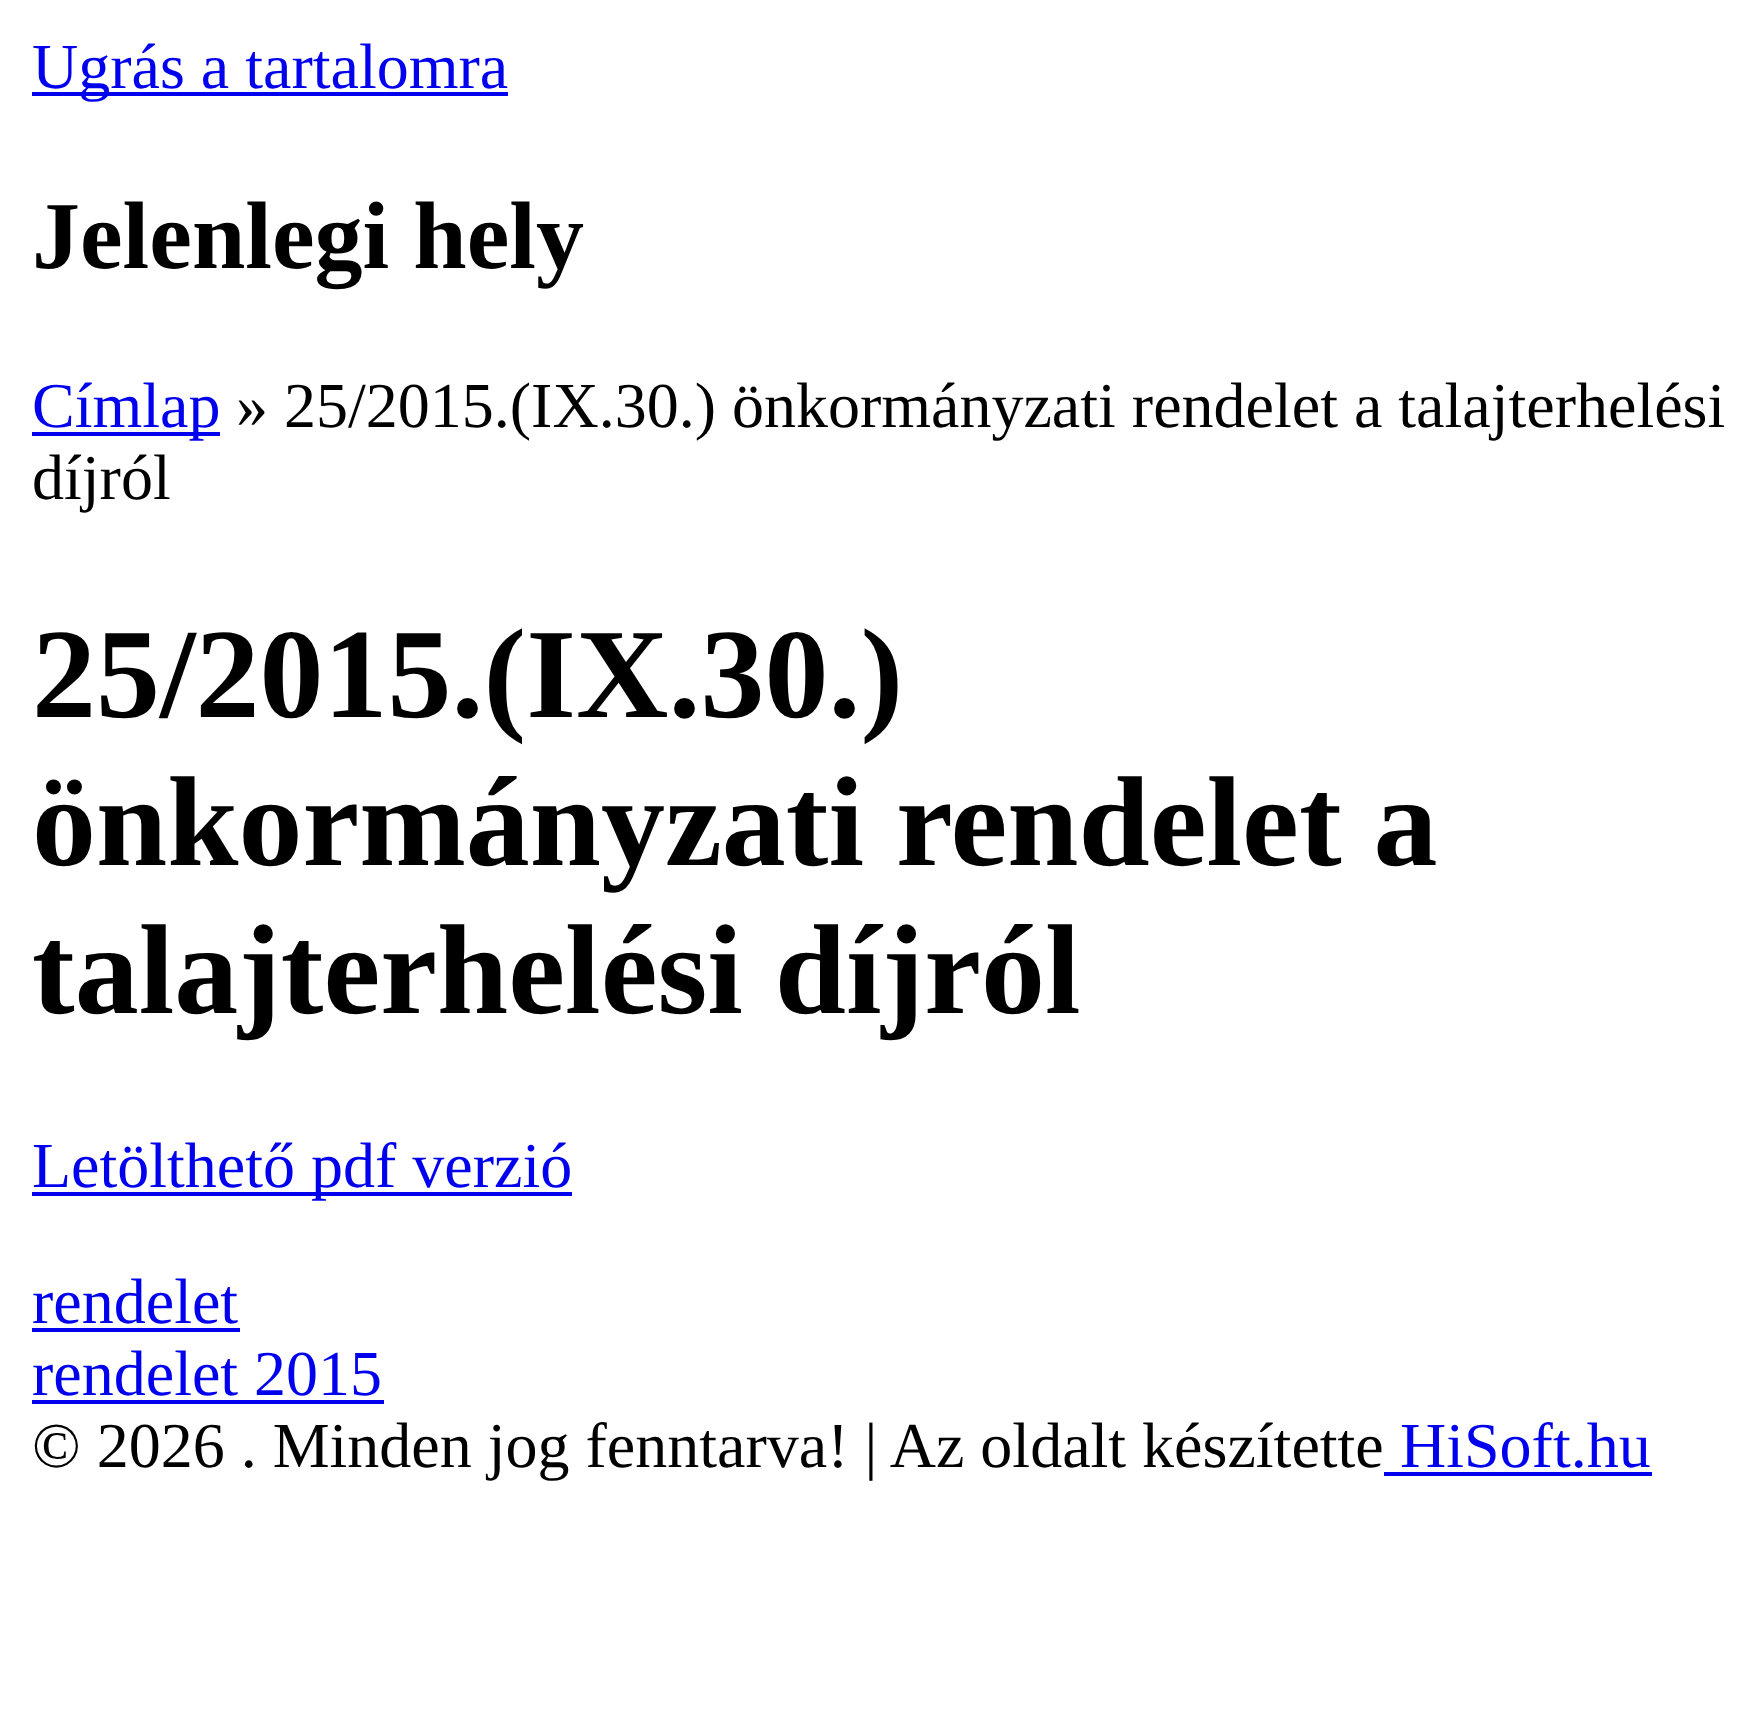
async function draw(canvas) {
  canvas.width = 1763;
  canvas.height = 1731;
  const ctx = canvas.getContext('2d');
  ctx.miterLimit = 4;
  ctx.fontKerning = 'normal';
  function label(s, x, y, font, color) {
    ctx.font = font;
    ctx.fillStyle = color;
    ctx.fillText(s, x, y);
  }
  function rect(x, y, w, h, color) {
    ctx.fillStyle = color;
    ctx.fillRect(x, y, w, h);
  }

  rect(0, 0, 1763, 1731, '#fff');
  rect(32, 92, 476, 4, '#00e');
  label('Ugrás a tartalomra', 32, 88, '64px Liberation Serif', '#00e');
  label('Jelenlegi hely', 32, 268, 'bold 96px Liberation Serif', '#000');
  rect(32, 432, 188, 4, '#00e');
  label('Címlap', 32, 427, '64px Liberation Serif', '#00e');
  label('» 25/2015.(IX.30.) önkormányzati rendelet a talajterhelési', 236, 427, '64px Liberation Serif', '#000');
  label('díjról', 32, 499, '64px Liberation Serif', '#000');
  label('25/2015.(IX.30.)', 32, 717, 'bold 128px Liberation Serif', '#000');
  label('önkormányzati rendelet a', 32, 865, 'bold 128px Liberation Serif', '#000');
  label('talajterhelési díjról', 32, 1013, 'bold 128px Liberation Serif', '#000');
  rect(32, 1192, 540, 4, '#00e');
  label('Letölthető pdf verzió', 32, 1187, '64px Liberation Serif', '#00e');
  label('rendelet', 32, 1323, '64px Liberation Serif', '#00e');
  rect(32, 1328, 208, 4, '#00e');
  label('rendelet 2015', 32, 1395, '64px Liberation Serif', '#00e');
  rect(32, 1400, 352, 4, '#00e');
  label('© 2026 . Minden jog fenntarva! | Az oldalt készítette', 32, 1467, '64px Liberation Serif', '#000');
  label('HiSoft.hu', 1400, 1467, '64px Liberation Serif', '#00e');
  rect(1384, 1472, 268, 4, '#00e');
}

draw(document.querySelector('canvas'));
